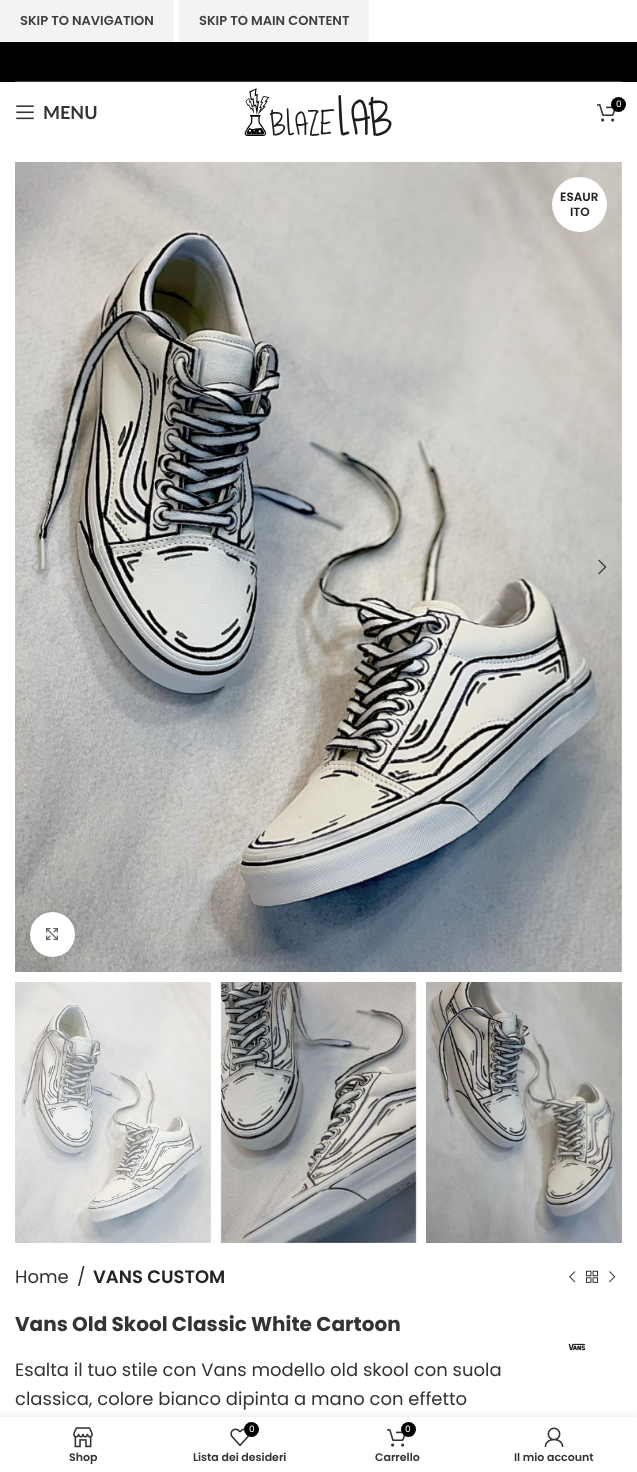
async function draw(canvas) {
  canvas.width = 637;
  canvas.height = 1472;
  const ctx = canvas.getContext('2d');
  ctx.miterLimit = 4;
  ctx.fontKerning = 'normal';
  function label(s, x, y, font, color) {
    ctx.font = font;
    ctx.fillStyle = color;
    ctx.fillText(s, x, y);
  }
  function rect(x, y, w, h, color) {
    ctx.fillStyle = color;
    ctx.fillRect(x, y, w, h);
  }
  async function image(src, x, y, w, h) {
    const img = new Image();
    img.src = src;
    await img.decode();
    ctx.drawImage(img, x, y, w, h);
  }

  rect(0, 0, 637, 1472, '#fff');
  rect(0, 0, 174, 42, '#f3f3f3');
  label('SKIP TO NAVIGATION', 20, 25, '600 13px Poppins', '#3e3e3e');
  rect(179, 0, 190, 42, '#f3f3f3');
  label('SKIP TO MAIN CONTENT', 199, 25, '600 13px Poppins', '#3e3e3e');
  rect(0, 42, 637, 40, '#000');
  rect(15, 81, 607, 1, '#404040');
  await image('assets/img1.png', 244, 88, 148, 48);
  await image('assets/img2.png', 597, 104, 19, 18);
  ctx.fillStyle = '#000';
  ctx.beginPath();
  ctx.arc(618.5, 104.5, 7.5, 0, 2 * Math.PI);
  ctx.fill();
  label('0', 616, 107, '9px Poppins', '#fff');
  await image('assets/img3.png', 16, 105, 18, 15);
  label('MENU', 43, 119, 'bold 18px Lato', '#333');
  await image('assets/img4.png', 15, 162, 607, 810);
  ctx.fillStyle = '#fff';
  ctx.beginPath();
  ctx.arc(579.5, 204.5, 27.5, 0, 2 * Math.PI);
  ctx.fill();
  label('ESAUR', 560, 201, '600 12px Poppins', '#242424');
  label('ITO', 570, 216, '600 12px Poppins', '#242424');
  await image('assets/img5.png', 31, 560, 8, 15);
  await image('assets/img6.png', 598, 559, 9, 16);
  ctx.fillStyle = '#00000014';
  ctx.filter = 'blur(2.5px)';
  ctx.beginPath();
  ctx.roundRect(30, 912, 45, 45, 22.5);
  ctx.fill();
  ctx.filter = 'none';
  ctx.fillStyle = '#fff';
  ctx.beginPath();
  ctx.arc(52.5, 934.5, 22.5, 0, 2 * Math.PI);
  ctx.fill();
  await image('assets/img7.png', 46, 928, 12, 12);
  await image('assets/img8.png', 15, 982, 196, 261);
  await image('assets/img9.png', 220, 982, 197, 261);
  await image('assets/img10.png', 426, 982, 196, 261);
  label('Home', 15, 1283, '18px Poppins', '#333');
  label('/', 77, 1283, '18px Poppins', '#333');
  label('VANS CUSTOM', 93, 1283, '600 18px Poppins', '#242424');
  await image('assets/img11.png', 569, 1271, 7, 12);
  await image('assets/img12.png', 586, 1270, 12, 13);
  await image('assets/img13.png', 609, 1271, 7, 12);
  label('Vans Old Skool Classic White Cartoon', 15, 1331, 'bold 20px Poppins', '#333');
  await image('assets/img14.png', 568, 1343, 18, 8);
  label('Esalta il tuo stile con Vans modello old skool con suola', 15, 1376, '18px Poppins', '#333');
  label('classica, colore bianco dipinta a mano con effetto', 15, 1405, '18px Poppins', '#333');
  ctx.fillStyle = '#0000001f';
  ctx.filter = 'blur(4.5px)';
  ctx.beginPath();
  ctx.rect(0, 1417, 637, 55);
  ctx.fill();
  ctx.filter = 'none';
  rect(0, 1417, 637, 55, '#fff');
  await image('assets/img15.png', 73, 1427, 20, 21);
  label('Shop', 69, 1461, '600 11px Poppins', '#333');
  await image('assets/img16.png', 230, 1428, 20, 18);
  ctx.fillStyle = '#000';
  ctx.beginPath();
  ctx.arc(251.5, 1429.5, 7.5, 0, 2 * Math.PI);
  ctx.fill();
  label('0', 249, 1432, '9px Poppins', '#fff');
  label('Lista dei desideri', 193, 1461, '600 11px Poppins', '#333');
  await image('assets/img2.png', 387, 1429, 19, 18);
  ctx.fillStyle = '#000';
  ctx.beginPath();
  ctx.arc(408.5, 1429.5, 7.5, 0, 2 * Math.PI);
  ctx.fill();
  label('0', 405, 1432, '9px Poppins', '#fff');
  label('Carrello', 375, 1461, '600 11px Poppins', '#333');
  await image('assets/img17.png', 544, 1427, 20, 20);
  label('Il mio account', 514, 1461, '600 11px Poppins', '#333');
}

draw(document.querySelector('canvas'));
